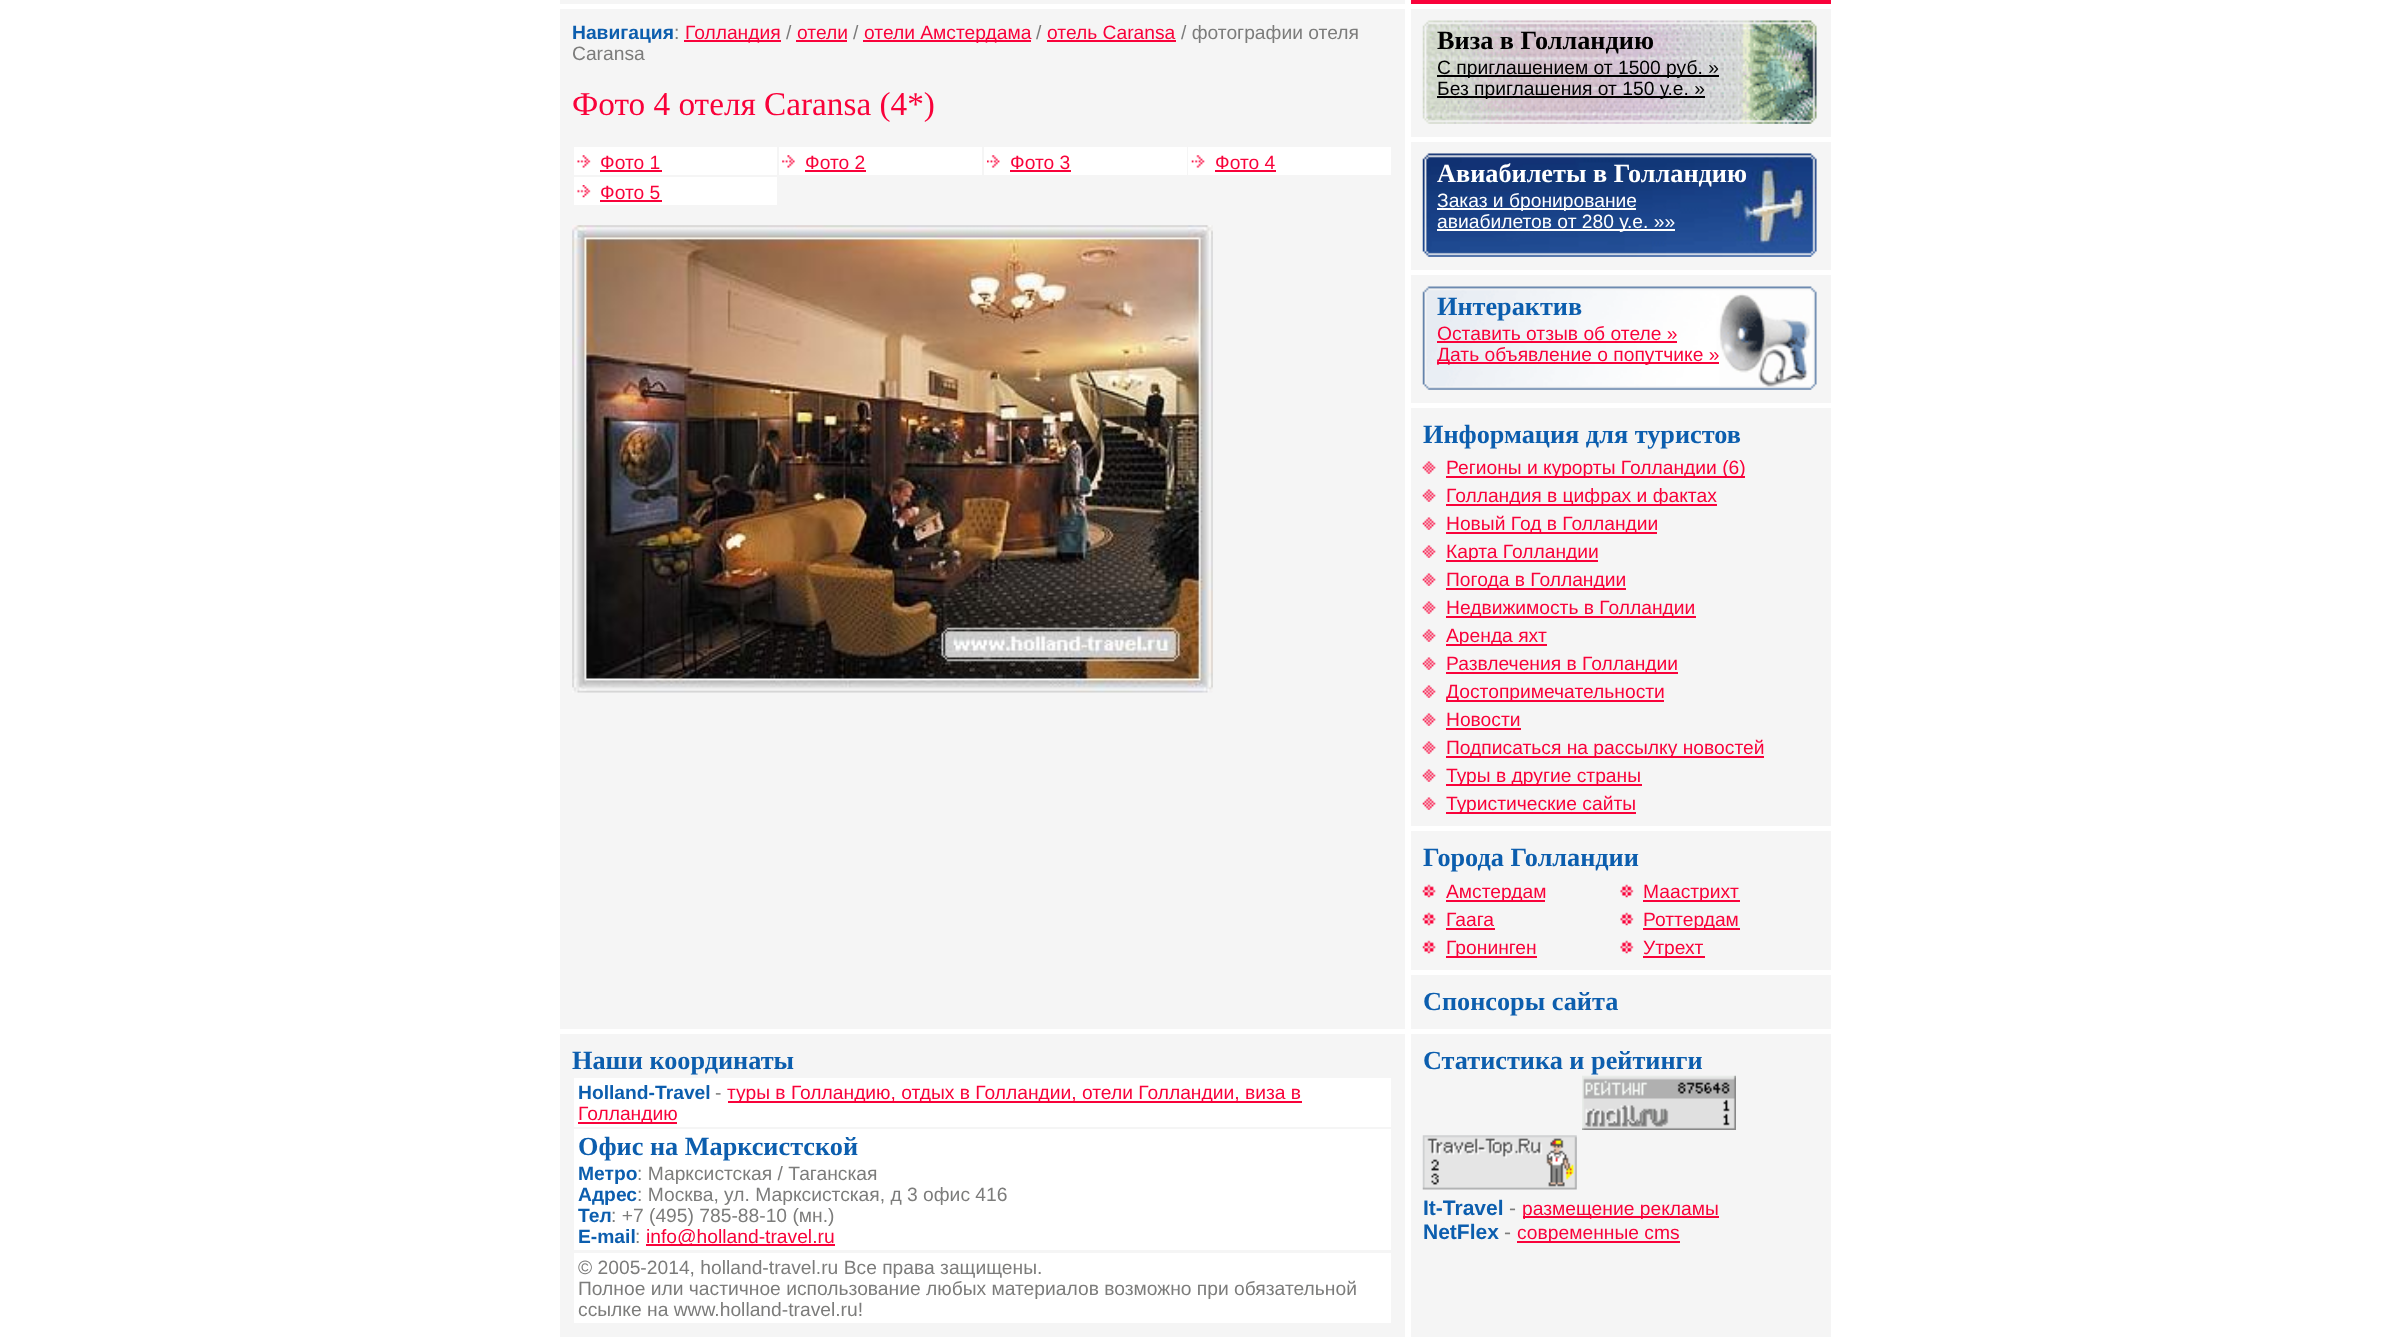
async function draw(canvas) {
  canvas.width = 2389;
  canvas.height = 1337;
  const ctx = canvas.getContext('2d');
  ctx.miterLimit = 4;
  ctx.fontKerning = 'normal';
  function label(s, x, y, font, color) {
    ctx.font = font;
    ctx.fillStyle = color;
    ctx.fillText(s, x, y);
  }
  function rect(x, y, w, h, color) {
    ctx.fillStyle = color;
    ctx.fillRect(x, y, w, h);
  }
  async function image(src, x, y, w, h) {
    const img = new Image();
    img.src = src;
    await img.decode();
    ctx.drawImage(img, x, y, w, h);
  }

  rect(0, 0, 2389, 1337, '#fff');
  rect(560, 0, 845, 4, '#f5f5f5');
  rect(1411, 0, 420, 4, '#f9023a');
  rect(560, 9, 845, 1020, '#f5f5f5');
  label('Навигация', 572, 39, 'bold 19.25px Liberation Sans', '#0c5eae');
  label(':', 674, 39, '19.25px Liberation Sans', '#7c7c7b');
  rect(684, 40, 97, 2, '#f9023a');
  label('Голландия', 685, 39, '19.25px Liberation Sans', '#f9023a');
  label('/', 786, 39, '19.25px Liberation Sans', '#7c7c7b');
  label('отели', 797, 39, '19.25px Liberation Sans', '#f9023a');
  rect(796, 40, 51, 2, '#f9023a');
  label('/', 853, 39, '19.25px Liberation Sans', '#7c7c7b');
  rect(863, 40, 168, 2, '#f9023a');
  label('отели Амстердама', 864, 39, '19.25px Liberation Sans', '#f9023a');
  label('/', 1036, 39, '19.25px Liberation Sans', '#7c7c7b');
  label('отель Caransa', 1047, 39, '19.25px Liberation Sans', '#f9023a');
  rect(1047, 40, 129, 2, '#f9023a');
  label('/ фотографии отеля', 1181, 39, '19.25px Liberation Sans', '#7c7c7b');
  label('Caransa', 572, 60, '19.25px Liberation Sans', '#7c7c7b');
  label('Фото 4 отеля Caransa (4*)', 572, 115, '33.25px Liberation Serif', '#f9023a');
  rect(574, 147, 203, 28, '#fff');
  await image('assets/img1.png', 577, 155, 14, 13);
  label('Фото 1', 600, 169, '19.25px Liberation Sans', '#f9023a');
  rect(600, 170, 62, 2, '#f9023a');
  rect(779, 147, 203, 28, '#fff');
  await image('assets/img2.png', 782, 155, 13, 13);
  label('Фото 2', 805, 169, '19.25px Liberation Sans', '#f9023a');
  rect(805, 170, 61, 2, '#f9023a');
  rect(984, 147, 203, 28, '#fff');
  await image('assets/img3.png', 987, 155, 13, 13);
  label('Фото 3', 1010, 169, '19.25px Liberation Sans', '#f9023a');
  rect(1010, 170, 61, 2, '#f9023a');
  rect(1188, 147, 203, 28, '#fff');
  await image('assets/img4.png', 1191, 155, 14, 13);
  label('Фото 4', 1215, 169, '19.25px Liberation Sans', '#f9023a');
  rect(1215, 170, 61, 2, '#f9023a');
  rect(574, 177, 203, 28, '#fff');
  await image('assets/img5.png', 577, 185, 14, 13);
  label('Фото 5', 600, 199, '19.25px Liberation Sans', '#f9023a');
  rect(600, 200, 62, 2, '#f9023a');
  await image('assets/img6.png', 572, 225, 641, 468);
  rect(1411, 9, 420, 1020, '#f5f5f5');
  await image('assets/img7.png', 1422, 20, 395, 104);
  label('Виза в Голландию', 1437, 49, 'bold 26.25px Liberation Serif', '#000');
  rect(1437, 75, 282, 2, '#000');
  label('С приглашением от 1500 руб. »', 1437, 74, '19.25px Liberation Sans', '#000');
  rect(1437, 96, 268, 2, '#000');
  label('Без приглашения от 150 у.е. »', 1437, 95, '19.25px Liberation Sans', '#000');
  rect(1411, 137, 420, 5, '#fff');
  await image('assets/img8.png', 1422, 153, 395, 104);
  label('Авиабилеты в Голландию', 1437, 182, 'bold 26.25px Liberation Serif', '#fff');
  rect(1437, 208, 199, 2, '#fff');
  label('Заказ и бронирование', 1437, 207, '19.25px Liberation Sans', '#fff');
  rect(1437, 229, 238, 2, '#fff');
  label('авиабилетов от 280 у.е. »»', 1437, 228, '19.25px Liberation Sans', '#fff');
  rect(1411, 270, 420, 5, '#fff');
  await image('assets/img9.png', 1422, 286, 395, 104);
  label('Интерактив', 1437, 315, 'bold 26.25px Liberation Serif', '#0c5eae');
  label('Оставить отзыв об отеле »', 1437, 340, '19.25px Liberation Sans', '#f9023a');
  rect(1437, 341, 240, 2, '#f9023a');
  rect(1437, 362, 282, 2, '#f9023a');
  label('Дать объявление о попутчике »', 1437, 361, '19.25px Liberation Sans', '#f9023a');
  rect(1411, 403, 420, 5, '#fff');
  label('Информация для туристов', 1423, 443, 'bold 26.25px Liberation Serif', '#0c5eae');
  await image('assets/img10.png', 1422, 461, 14, 13);
  rect(1446, 476, 299, 2, '#f9023a');
  label('Регионы и курорты Голландии (6)', 1446, 474, '19.25px Liberation Sans', '#f9023a');
  await image('assets/img10.png', 1422, 489, 14, 13);
  rect(1446, 504, 271, 2, '#f9023a');
  label('Голландия в цифрах и фактах', 1446, 502, '19.25px Liberation Sans', '#f9023a');
  await image('assets/img10.png', 1422, 517, 14, 13);
  rect(1446, 532, 211, 2, '#f9023a');
  label('Новый Год в Голландии', 1446, 530, '19.25px Liberation Sans', '#f9023a');
  await image('assets/img10.png', 1422, 545, 14, 13);
  rect(1446, 560, 152, 2, '#f9023a');
  label('Карта Голландии', 1446, 558, '19.25px Liberation Sans', '#f9023a');
  await image('assets/img10.png', 1422, 573, 14, 13);
  rect(1446, 588, 180, 2, '#f9023a');
  label('Погода в Голландии', 1446, 586, '19.25px Liberation Sans', '#f9023a');
  await image('assets/img10.png', 1422, 601, 14, 13);
  rect(1446, 616, 250, 2, '#f9023a');
  label('Недвижимость в Голландии', 1446, 614, '19.25px Liberation Sans', '#f9023a');
  await image('assets/img10.png', 1422, 629, 14, 13);
  rect(1446, 644, 101, 2, '#f9023a');
  label('Аренда яхт', 1446, 642, '19.25px Liberation Sans', '#f9023a');
  await image('assets/img10.png', 1422, 657, 14, 13);
  rect(1446, 672, 232, 2, '#f9023a');
  label('Развлечения в Голландии', 1446, 670, '19.25px Liberation Sans', '#f9023a');
  await image('assets/img10.png', 1422, 685, 14, 13);
  rect(1446, 700, 218, 2, '#f9023a');
  label('Достопримечательности', 1446, 698, '19.25px Liberation Sans', '#f9023a');
  await image('assets/img10.png', 1422, 713, 14, 13);
  label('Новости', 1446, 726, '19.25px Liberation Sans', '#f9023a');
  rect(1446, 728, 75, 2, '#f9023a');
  await image('assets/img10.png', 1422, 741, 14, 13);
  rect(1446, 756, 318, 2, '#f9023a');
  label('Подписаться на рассылку новостей', 1446, 754, '19.25px Liberation Sans', '#f9023a');
  await image('assets/img10.png', 1422, 769, 14, 13);
  rect(1446, 784, 196, 2, '#f9023a');
  label('Туры в другие страны', 1446, 782, '19.25px Liberation Sans', '#f9023a');
  await image('assets/img10.png', 1422, 797, 14, 13);
  rect(1446, 812, 190, 2, '#f9023a');
  label('Туристические сайты', 1446, 810, '19.25px Liberation Sans', '#f9023a');
  rect(1411, 826, 420, 5, '#fff');
  label('Города Голландии', 1423, 866, 'bold 26.25px Liberation Serif', '#0c5eae');
  await image('assets/img11.png', 1422, 884, 14, 14);
  rect(1446, 900, 99, 2, '#f9023a');
  label('Амстердам', 1446, 898, '19.25px Liberation Sans', '#f9023a');
  await image('assets/img11.png', 1422, 912, 14, 14);
  label('Гаага', 1446, 926, '19.25px Liberation Sans', '#f9023a');
  rect(1446, 928, 49, 2, '#f9023a');
  await image('assets/img11.png', 1422, 940, 14, 14);
  rect(1446, 956, 91, 2, '#f9023a');
  label('Гронинген', 1446, 954, '19.25px Liberation Sans', '#f9023a');
  await image('assets/img12.png', 1620, 884, 14, 14);
  rect(1643, 900, 97, 2, '#f9023a');
  label('Маастрихт', 1643, 898, '19.25px Liberation Sans', '#f9023a');
  await image('assets/img12.png', 1620, 912, 14, 14);
  rect(1643, 928, 97, 2, '#f9023a');
  label('Роттердам', 1643, 926, '19.25px Liberation Sans', '#f9023a');
  await image('assets/img12.png', 1620, 940, 14, 14);
  rect(1643, 956, 62, 2, '#f9023a');
  label('Утрехт', 1643, 954, '19.25px Liberation Sans', '#f9023a');
  rect(1411, 970, 420, 5, '#fff');
  label('Спонсоры сайта', 1423, 1010, 'bold 26.25px Liberation Serif', '#0c5eae');
  rect(560, 1034, 845, 303, '#f5f5f5');
  label('Наши координаты', 572, 1069, 'bold 26.25px Liberation Serif', '#0c5eae');
  rect(574, 1078, 817, 49, '#fff');
  label('Holland-Travel', 578, 1099, 'bold 19.25px Liberation Sans', '#0c5eae');
  label('-', 715, 1099, '19.25px Liberation Sans', '#7c7c7b');
  rect(728, 1101, 574, 2, '#f9023a');
  label('туры в Голландию, отдых в Голландии, отели Голландии, виза в', 727, 1099, '19.25px Liberation Sans', '#f9023a');
  rect(578, 1122, 99, 2, '#f9023a');
  label('Голландию', 578, 1120, '19.25px Liberation Sans', '#f9023a');
  rect(574, 1129, 817, 121, '#fff');
  label('Офис на Марксистской', 578, 1155, 'bold 26.25px Liberation Serif', '#0c5eae');
  label('Метро', 578, 1180, 'bold 19.25px Liberation Sans', '#0c5eae');
  label(': Марксистская / Таганская', 637, 1180, '19.25px Liberation Sans', '#7c7c7b');
  label('Адрес', 578, 1201, 'bold 19.25px Liberation Sans', '#0c5eae');
  label(': Москва, ул. Марксистская, д 3 офис 416', 637, 1201, '19.25px Liberation Sans', '#7c7c7b');
  label('Тел', 578, 1222, 'bold 19.25px Liberation Sans', '#0c5eae');
  label(': +7 (495) 785-88-10 (мн.)', 611, 1222, '19.25px Liberation Sans', '#7c7c7b');
  label('E-mail', 578, 1243, 'bold 19.25px Liberation Sans', '#0c5eae');
  label(':', 635, 1243, '19.25px Liberation Sans', '#7c7c7b');
  rect(646, 1244, 189, 2, '#f9023a');
  label('info@holland-travel.ru', 646, 1243, '19.25px Liberation Sans', '#f9023a');
  rect(574, 1253, 817, 70, '#fff');
  label('© 2005-2014, holland-travel.ru Все права защищены.', 578, 1274, '19.25px Liberation Sans', '#7c7c7b');
  label('Полное или частичное использование любых материалов возможно при обязательной', 578, 1295, '19.25px Liberation Sans', '#7c7c7b');
  label('ссылке на www.holland-travel.ru!', 578, 1316, '19.25px Liberation Sans', '#7c7c7b');
  rect(1411, 1034, 420, 303, '#f5f5f5');
  label('Статистика и рейтинги', 1423, 1069, 'bold 26.25px Liberation Serif', '#0c5eae');
  await image('assets/img13.png', 1582, 1075, 154, 55);
  await image('assets/img14.png', 1422, 1135, 155, 55);
  label('It-Travel', 1423, 1215, 'bold 21px Liberation Sans', '#0c5eae');
  label('-', 1509, 1215, '21px Liberation Sans', '#7c7c7b');
  rect(1523, 1216, 196, 2, '#f9023a');
  label('размещение рекламы', 1522, 1215, '19.25px Liberation Sans', '#f9023a');
  label('NetFlex', 1423, 1239, 'bold 21px Liberation Sans', '#0c5eae');
  label('-', 1504, 1239, '21px Liberation Sans', '#7c7c7b');
  rect(1517, 1241, 163, 2, '#f9023a');
  label('современные cms', 1517, 1239, '19.25px Liberation Sans', '#f9023a');
}

draw(document.querySelector('canvas'));
